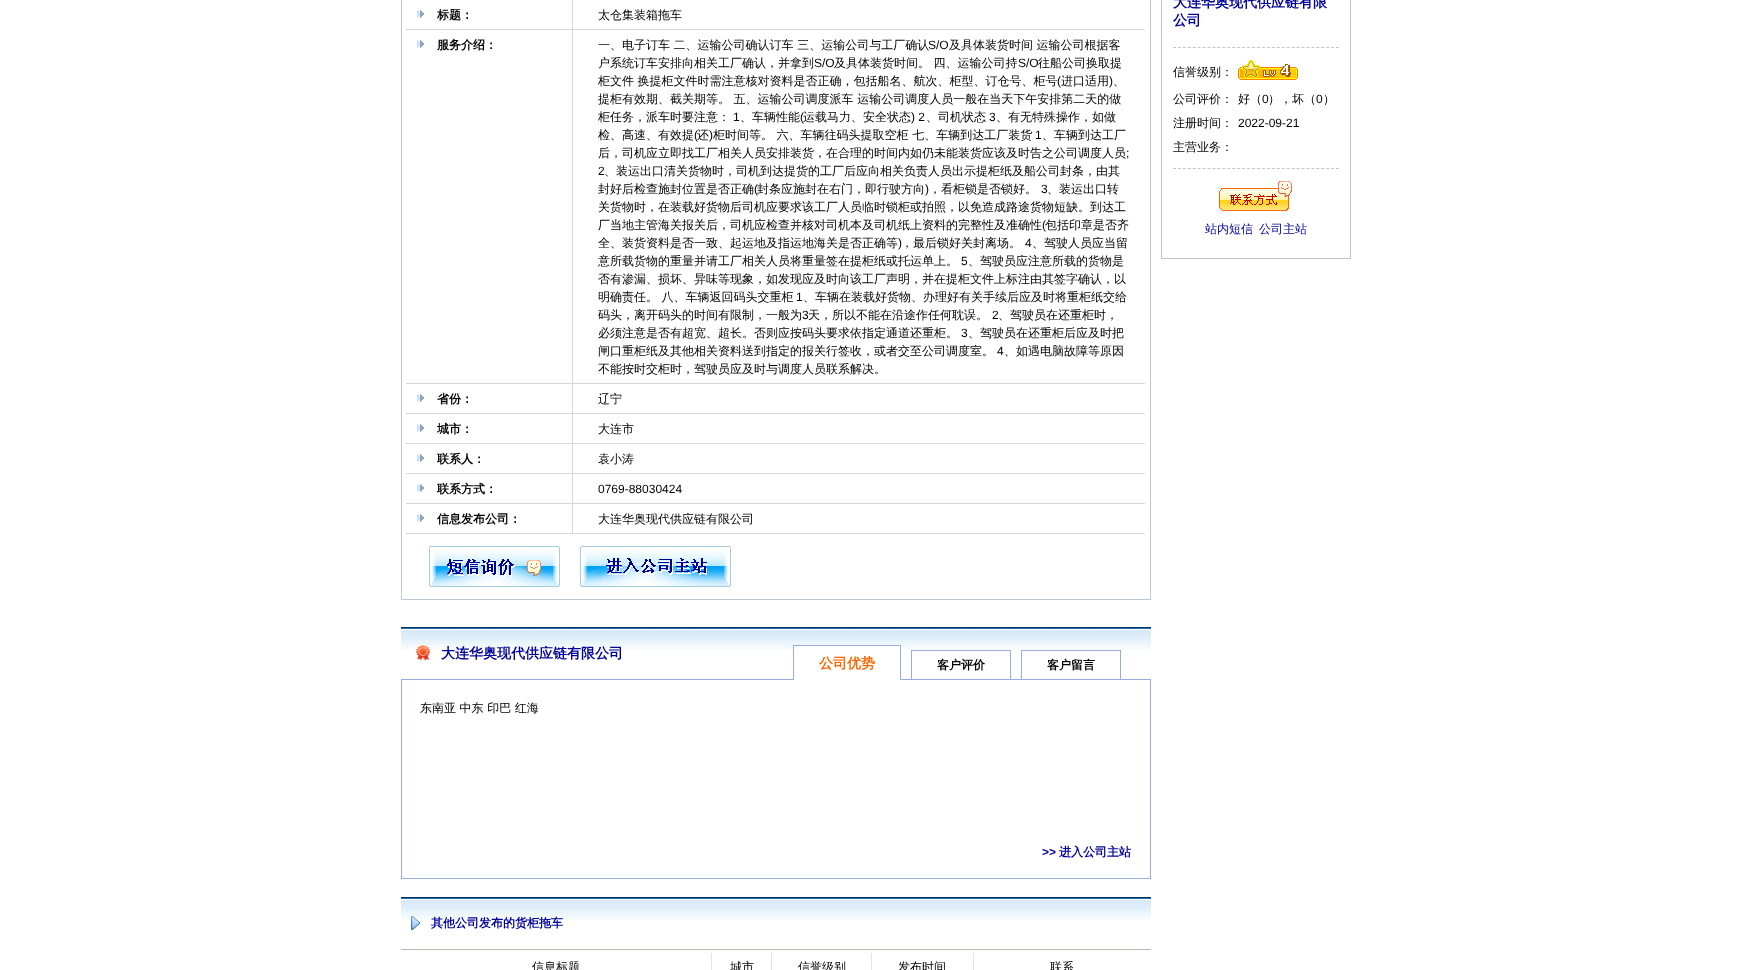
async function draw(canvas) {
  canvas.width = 1751;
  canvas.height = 970;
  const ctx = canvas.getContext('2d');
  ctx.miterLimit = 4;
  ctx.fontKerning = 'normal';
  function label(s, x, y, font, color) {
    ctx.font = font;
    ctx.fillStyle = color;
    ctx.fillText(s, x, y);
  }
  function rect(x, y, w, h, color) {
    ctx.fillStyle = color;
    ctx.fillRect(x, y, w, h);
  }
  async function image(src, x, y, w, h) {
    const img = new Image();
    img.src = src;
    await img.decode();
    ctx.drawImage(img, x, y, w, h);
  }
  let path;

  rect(0, 0, 1751, 970, '#fff');
  rect(1150, 0, 1, 600, '#bbc8d4');
  rect(401, 599, 750, 1, '#bbc8d4');
  rect(401, 0, 1, 600, '#bbc8d4');
  await image('assets/img1.png', 417, 10, 7, 8);
  rect(572, 533, 573, 1, '#d8d8d8');
  rect(572, 503, 1, 31, '#d8d8d8');
  rect(572, 503, 573, 1, '#d8d8d8');
  rect(572, 473, 1, 31, '#d8d8d8');
  rect(572, 473, 573, 1, '#d8d8d8');
  rect(572, 443, 1, 31, '#d8d8d8');
  rect(572, 443, 573, 1, '#d8d8d8');
  rect(572, 413, 1, 31, '#d8d8d8');
  rect(572, 413, 573, 1, '#d8d8d8');
  rect(572, 383, 1, 31, '#d8d8d8');
  rect(572, 383, 573, 1, '#d8d8d8');
  rect(572, 29, 1, 355, '#d8d8d8');
  rect(572, 29, 573, 1, '#d8d8d8');
  rect(572, 0, 1, 30, '#d8d8d8');
  rect(406, 29, 167, 1, '#d8d8d8');
  label('标题：', 437, 19, 'bold 12px WenQuanYi Zen Hei', '#000');
  label('太仓集装箱拖车', 598, 19, '500 12px WenQuanYi Zen Hei', '#000');
  await image('assets/img1.png', 417, 40, 7, 8);
  rect(406, 383, 167, 1, '#d8d8d8');
  label('服务介绍：', 437, 49, 'bold 12px WenQuanYi Zen Hei', '#000');
  label('一、电子订车 二、运输公司确认订车 三、运输公司与工厂确认', 598, 49, '500 12px WenQuanYi Zen Hei', '#000');
  label('S/O', 928, 49, '12px Liberation Sans', '#000');
  label('及具体装货时间 运输公司根据客', 949, 49, '500 12px WenQuanYi Zen Hei', '#000');
  label('户系统订车安排向相关工厂确认，并拿到', 598, 67, '500 12px WenQuanYi Zen Hei', '#000');
  label('S/O', 814, 67, '12px Liberation Sans', '#000');
  label('及具体装货时间。 四、运输公司持', 834, 67, '500 12px WenQuanYi Zen Hei', '#000');
  label('S/O', 1018, 67, '12px Liberation Sans', '#000');
  label('往船公司换取提', 1038, 67, '500 12px WenQuanYi Zen Hei', '#000');
  label('柜文件 换提柜文件时需注意核对资料是否正确，包括船名、航次、柜型、订仓号、柜号', 598, 85, '500 12px WenQuanYi Zen Hei', '#000');
  label('(', 1057, 85, '12px Liberation Sans', '#000');
  label('进口适用', 1061, 85, '500 12px WenQuanYi Zen Hei', '#000');
  label(')', 1109, 85, '12px Liberation Sans', '#000');
  label('、', 1113, 85, '500 12px WenQuanYi Zen Hei', '#000');
  label('提柜有效期、截关期等。 五、运输公司调度派车 运输公司调度人员一般在当天下午安排第二天的做', 598, 103, '500 12px WenQuanYi Zen Hei', '#000');
  label('柜任务，派车时要注意：', 598, 121, '500 12px WenQuanYi Zen Hei', '#000');
  label('1', 733, 121, '12px Liberation Sans', '#000');
  label('、车辆性能', 740, 121, '500 12px WenQuanYi Zen Hei', '#000');
  label('(', 800, 121, '12px Liberation Sans', '#000');
  label('运载马力、安全状态', 803, 121, '500 12px WenQuanYi Zen Hei', '#000');
  label(') 2', 911, 121, '12px Liberation Sans', '#000');
  label('、司机状态', 926, 121, '500 12px WenQuanYi Zen Hei', '#000');
  label('3', 989, 121, '12px Liberation Sans', '#000');
  label('、有无特殊操作，如做', 996, 121, '500 12px WenQuanYi Zen Hei', '#000');
  label('检、高速、有效提', 598, 139, '500 12px WenQuanYi Zen Hei', '#000');
  label('(', 694, 139, '12px Liberation Sans', '#000');
  label('还', 697, 139, '500 12px WenQuanYi Zen Hei', '#000');
  label(')', 709, 139, '12px Liberation Sans', '#000');
  label('柜时间等。 六、车辆往码头提取空柜 七、车辆到达工厂装货', 713, 139, '500 12px WenQuanYi Zen Hei', '#000');
  label('1', 1035, 139, '12px Liberation Sans', '#000');
  label('、车辆到达工厂', 1042, 139, '500 12px WenQuanYi Zen Hei', '#000');
  label('后，司机应立即找工厂相关人员安排装货，在合理的时间内如仍未能装货应该及时告之公司调度人员', 598, 157, '500 12px WenQuanYi Zen Hei', '#000');
  label(';', 1126, 157, '12px Liberation Sans', '#000');
  label('2', 598, 175, '12px Liberation Sans', '#000');
  label('、装运出口清关货物时，司机到达提货的工厂后应向相关负责人员出示提柜纸及船公司封条，由其', 604, 175, '500 12px WenQuanYi Zen Hei', '#000');
  label('封好后检查施封位置是否正确', 598, 193, '500 12px WenQuanYi Zen Hei', '#000');
  label('(', 754, 193, '12px Liberation Sans', '#000');
  label('封条应施封在右门，即行驶方向', 757, 193, '500 12px WenQuanYi Zen Hei', '#000');
  label(')', 925, 193, '12px Liberation Sans', '#000');
  label('，看柜锁是否锁好。', 929, 193, '500 12px WenQuanYi Zen Hei', '#000');
  label('3', 1041, 193, '12px Liberation Sans', '#000');
  label('、装运出口转', 1047, 193, '500 12px WenQuanYi Zen Hei', '#000');
  label('关货物时，在装载好货物后司机应要求该工厂人员临时锁柜或拍照，以免造成路途货物短缺。到达工', 598, 211, '500 12px WenQuanYi Zen Hei', '#000');
  label('厂当地主管海关报关后，司机应检查并核对司机本及司机纸上资料的完整性及准确性', 598, 229, '500 12px WenQuanYi Zen Hei', '#000');
  label('(', 1042, 229, '12px Liberation Sans', '#000');
  label('包括印章是否齐', 1045, 229, '500 12px WenQuanYi Zen Hei', '#000');
  label('全、装货资料是否一致、起运地及指运地海关是否正确等', 598, 247, '500 12px WenQuanYi Zen Hei', '#000');
  label(')', 898, 247, '12px Liberation Sans', '#000');
  label('，最后锁好关封离场。', 901, 247, '500 12px WenQuanYi Zen Hei', '#000');
  label('4', 1025, 247, '12px Liberation Sans', '#000');
  label('、驾驶人员应当留', 1032, 247, '500 12px WenQuanYi Zen Hei', '#000');
  label('意所载货物的重量并请工厂相关人员将重量签在提柜纸或托运单上。', 598, 265, '500 12px WenQuanYi Zen Hei', '#000');
  label('5', 961, 265, '12px Liberation Sans', '#000');
  label('、驾驶员应注意所载的货物是', 968, 265, '500 12px WenQuanYi Zen Hei', '#000');
  label('否有渗漏、损坏、异味等现象，如发现应及时向该工厂声明，并在提柜文件上标注由其签字确认，以', 598, 283, '500 12px WenQuanYi Zen Hei', '#000');
  label('明确责任。 八、车辆返回码头交重柜', 598, 301, '500 12px WenQuanYi Zen Hei', '#000');
  label('1', 796, 301, '12px Liberation Sans', '#000');
  label('、车辆在装载好货物、办理好有关手续后应及时将重柜纸交给', 803, 301, '500 12px WenQuanYi Zen Hei', '#000');
  label('码头，离开码头的时间有限制，一般为', 598, 319, '500 12px WenQuanYi Zen Hei', '#000');
  label('3', 802, 319, '12px Liberation Sans', '#000');
  label('天，所以不能在沿途作任何耽误。', 808, 319, '500 12px WenQuanYi Zen Hei', '#000');
  label('2', 992, 319, '12px Liberation Sans', '#000');
  label('、驾驶员在还重柜时，', 998, 319, '500 12px WenQuanYi Zen Hei', '#000');
  label('必须注意是否有超宽、超长。否则应按码头要求依指定通道还重柜。', 598, 337, '500 12px WenQuanYi Zen Hei', '#000');
  label('3', 961, 337, '12px Liberation Sans', '#000');
  label('、驾驶员在还重柜后应及时把', 968, 337, '500 12px WenQuanYi Zen Hei', '#000');
  label('闸口重柜纸及其他相关资料送到指定的报关行签收，或者交至公司调度室。', 598, 355, '500 12px WenQuanYi Zen Hei', '#000');
  label('4', 997, 355, '12px Liberation Sans', '#000');
  label('、如遇电脑故障等原因', 1004, 355, '500 12px WenQuanYi Zen Hei', '#000');
  label('不能按时交柜时，驾驶员应及时与调度人员联系解决。', 598, 373, '500 12px WenQuanYi Zen Hei', '#000');
  await image('assets/img1.png', 417, 394, 7, 8);
  rect(406, 413, 167, 1, '#d8d8d8');
  label('省份：', 437, 403, 'bold 12px WenQuanYi Zen Hei', '#000');
  label('辽宁', 598, 403, '500 12px WenQuanYi Zen Hei', '#000');
  await image('assets/img1.png', 417, 424, 7, 8);
  rect(406, 443, 167, 1, '#d8d8d8');
  label('城市：', 437, 433, 'bold 12px WenQuanYi Zen Hei', '#000');
  label('大连市', 598, 433, '500 12px WenQuanYi Zen Hei', '#000');
  await image('assets/img1.png', 417, 454, 7, 8);
  rect(406, 473, 167, 1, '#d8d8d8');
  label('联系人：', 437, 463, 'bold 12px WenQuanYi Zen Hei', '#000');
  label('袁小涛', 598, 463, '500 12px WenQuanYi Zen Hei', '#000');
  await image('assets/img1.png', 417, 484, 7, 8);
  rect(406, 503, 167, 1, '#d8d8d8');
  label('联系方式：', 437, 493, 'bold 12px WenQuanYi Zen Hei', '#000');
  label('0769-88030424', 598, 493, '12px Liberation Sans', '#000');
  await image('assets/img1.png', 417, 514, 7, 8);
  rect(406, 533, 167, 1, '#d8d8d8');
  label('信息发布公司：', 437, 523, 'bold 12px WenQuanYi Zen Hei', '#000');
  label('大连华奥现代供应链有限公司', 598, 523, '500 12px WenQuanYi Zen Hei', '#000');
  await image('assets/img2.png', 429, 546, 131, 41);
  await image('assets/img3.png', 580, 546, 151, 41);
  await image('assets/img4.png', 401, 627, 750, 23);
  await image('assets/img5.png', 416, 645, 15, 16);
  label('大连华奥现代供应链有限公司', 441, 658, 'bold 14px WenQuanYi Zen Hei', '#009');
  ctx.strokeStyle = '#97adde';
  ctx.strokeRect(401.5, 679.5, 749, 199);
  rect(794, 646, 106, 34, '#fff');
  rect(793, 645, 108, 1, '#97adde');
  rect(900, 645, 1, 35, '#97adde');
  rect(793, 645, 1, 35, '#97adde');
  label('公司优势', 819, 668, 'bold 14px WenQuanYi Zen Hei', '#f60');
  rect(911, 650, 100, 1, '#97adde');
  rect(1010, 650, 1, 29, '#97adde');
  rect(911, 650, 1, 29, '#97adde');
  label('客户评价', 937, 669, 'bold 12px WenQuanYi Zen Hei', '#000');
  rect(1021, 650, 100, 1, '#97adde');
  rect(1120, 650, 1, 29, '#97adde');
  rect(1021, 650, 1, 29, '#97adde');
  label('客户留言', 1047, 669, 'bold 12px WenQuanYi Zen Hei', '#000');
  label('东南亚 中东 印巴 红海', 420, 712, '500 12px WenQuanYi Zen Hei', '#000');
  label('>>', 1042, 856, 'bold 12px Liberation Sans', '#009');
  label('进入公司主站', 1059, 856, 'bold 12px WenQuanYi Zen Hei', '#009');
  await image('assets/img4.png', 401, 897, 750, 23);
  await image('assets/img6.png', 411, 916, 9, 14);
  label('其他公司发布的货柜拖车', 431, 927, 'bold 12px WenQuanYi Zen Hei', '#009');
  rect(401, 949, 750, 1, '#bebaaf');
  label('信息标题', 532, 971, '500 12px WenQuanYi Zen Hei', '#000');
  rect(711, 953, 1, 17, '#e4e4e4');
  label('城市', 730, 971, '500 12px WenQuanYi Zen Hei', '#000');
  rect(771, 953, 1, 17, '#e4e4e4');
  label('信誉级别', 798, 971, '500 12px WenQuanYi Zen Hei', '#000');
  rect(871, 953, 1, 17, '#e4e4e4');
  label('发布时间', 898, 971, '500 12px WenQuanYi Zen Hei', '#000');
  rect(973, 953, 1, 17, '#e4e4e4');
  label('联系', 1050, 971, '500 12px WenQuanYi Zen Hei', '#000');
  rect(1350, 0, 1, 259, '#c4c4c4');
  rect(1161, 258, 190, 1, '#c4c4c4');
  rect(1161, 0, 1, 259, '#c4c4c4');
  label('大连华奥现代供应链有限', 1173, 7, 'bold 14px WenQuanYi Zen Hei', '#009');
  label('公司', 1173, 25, 'bold 14px WenQuanYi Zen Hei', '#009');
  path = new Path2D('M1173 47.5H1339');
  ctx.strokeStyle = '#c4c4c4';
  ctx.setLineDash([3, 1.94]);
  ctx.stroke(path);
  path = new Path2D('M1173 168.5H1339');
  ctx.stroke(path);
  label('信誉级别：', 1173, 76, '500 12px WenQuanYi Zen Hei', '#000');
  await image('assets/img7.png', 1238, 60, 60, 20);
  label('公司评价：', 1173, 103, '500 12px WenQuanYi Zen Hei', '#000');
  label('好（', 1238, 103, '500 12px WenQuanYi Zen Hei', '#000');
  label('0', 1262, 103, '12px Liberation Sans', '#000');
  label('），坏（', 1268, 103, '500 12px WenQuanYi Zen Hei', '#000');
  label('0', 1316, 103, '12px Liberation Sans', '#000');
  label('）', 1323, 103, '500 12px WenQuanYi Zen Hei', '#000');
  label('注册时间：', 1173, 127, '500 12px WenQuanYi Zen Hei', '#000');
  label('2022-09-21', 1238, 127, '12px Liberation Sans', '#000');
  label('主营业务：', 1173, 151, '500 12px WenQuanYi Zen Hei', '#000');
  await image('assets/img8.png', 1219, 181, 73, 30);
  label('站内短信', 1205, 233, '500 12px WenQuanYi Zen Hei', '#009');
  label('公司主站', 1259, 233, '500 12px WenQuanYi Zen Hei', '#009');
}

draw(document.querySelector('canvas'));
